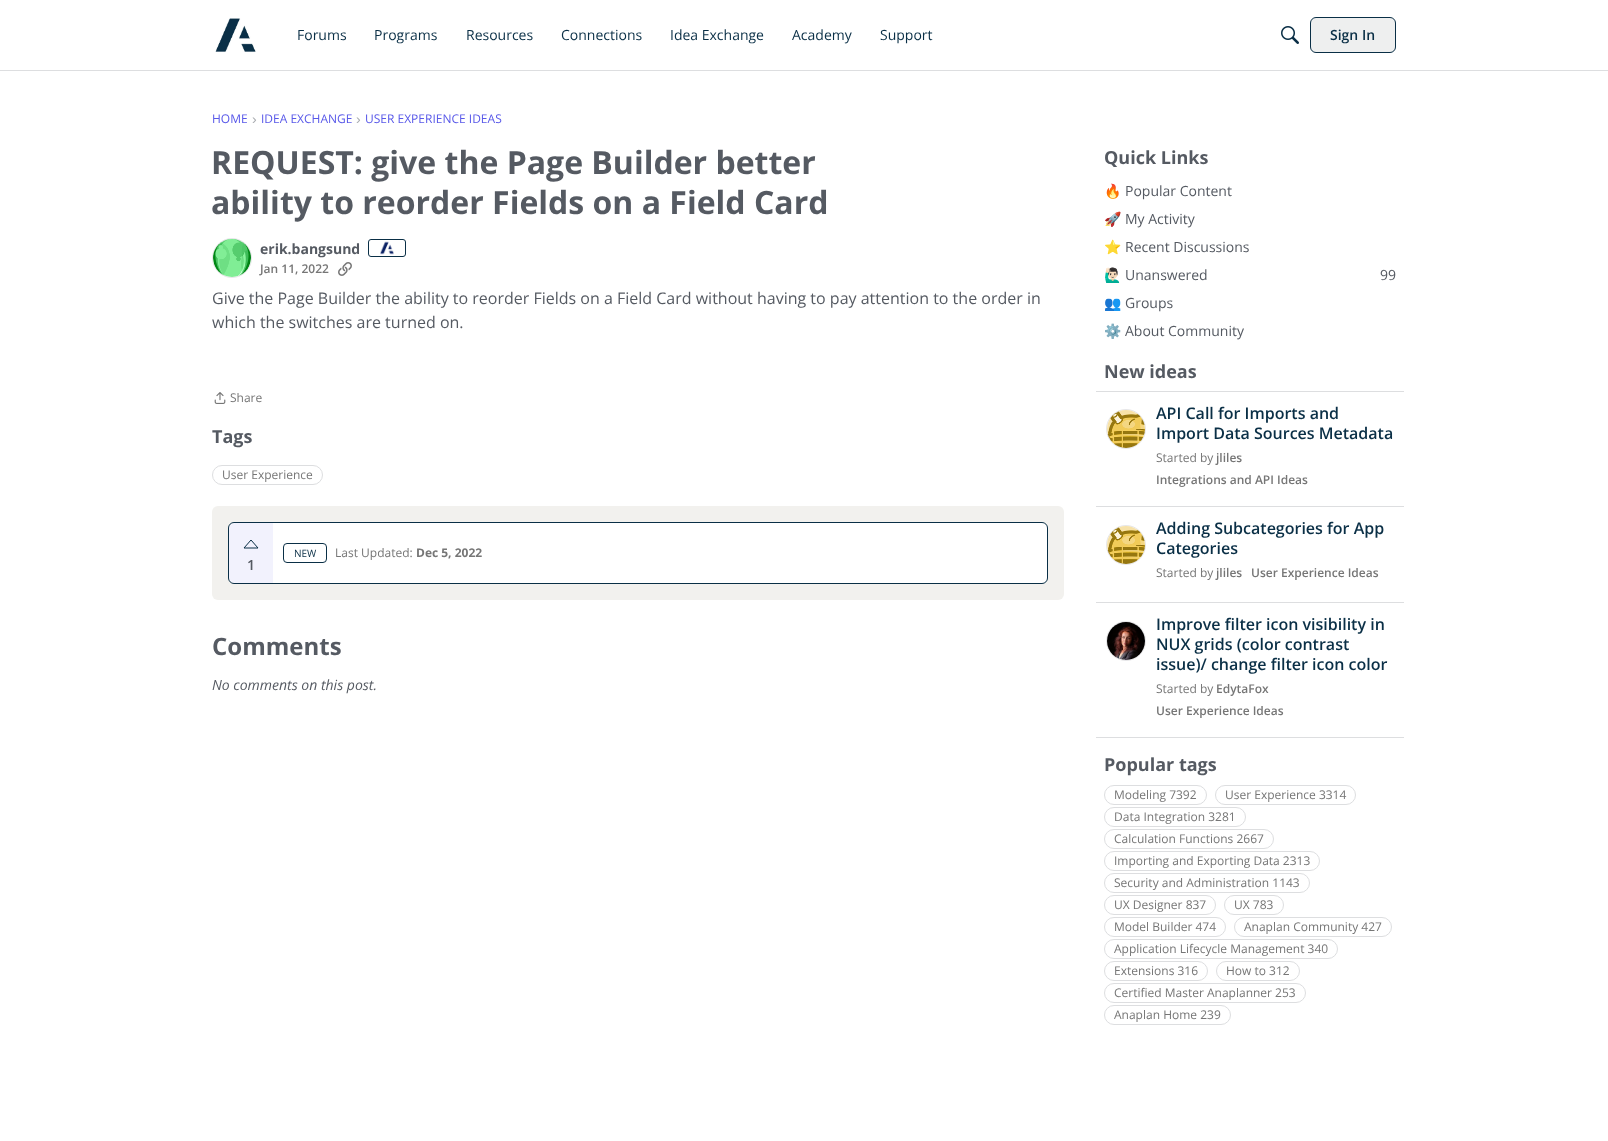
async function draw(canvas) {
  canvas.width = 1608;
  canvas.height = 1141;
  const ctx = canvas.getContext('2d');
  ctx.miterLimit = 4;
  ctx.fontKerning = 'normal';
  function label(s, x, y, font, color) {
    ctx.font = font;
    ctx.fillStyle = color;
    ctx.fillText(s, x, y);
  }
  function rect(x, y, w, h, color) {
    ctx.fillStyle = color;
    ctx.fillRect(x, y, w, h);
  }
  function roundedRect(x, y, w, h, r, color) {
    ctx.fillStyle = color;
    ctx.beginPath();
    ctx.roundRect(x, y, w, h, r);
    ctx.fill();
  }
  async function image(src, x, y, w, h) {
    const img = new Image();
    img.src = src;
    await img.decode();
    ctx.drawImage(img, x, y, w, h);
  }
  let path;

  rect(0, 0, 1608, 1141, '#fff');
  rect(0, 70, 1608, 1, '#dddee0');
  await image('assets/img1.png', 215, 18, 41, 34);
  label('Forums', 297, 40, '14px Open Sans', '#0a2f46');
  label('Programs', 374, 40, '14px Open Sans', '#0a2f46');
  label('Resources', 466, 40, '14px Open Sans', '#0a2f46');
  label('Connections', 561, 40, '14px Open Sans', '#0a2f46');
  label('Idea Exchange', 670, 40, '14px Open Sans', '#0a2f46');
  label('Academy', 792, 40, '14px Open Sans', '#0a2f46');
  label('Support', 880, 40, '14px Open Sans', '#0a2f46');
  await image('assets/img2.png', 1281, 26, 18, 18);
  ctx.fillStyle = '#eeefef';
  ctx.beginPath();
  ctx.roundRect(1310.5, 17.5, 85, 35, 5.5);
  ctx.fill();
  ctx.strokeStyle = '#0a2f46';
  ctx.stroke();
  label('Sign In', 1330, 40, '600 14px Open Sans', '#0a2f46');
  label('HOME', 212, 123, '12px Open Sans', '#5858e9');
  label('›', 252, 124, '14px Liberation Sans', '#aaadb1');
  label('IDEA EXCHANGE', 261, 123, '12px Open Sans', '#5858e9');
  label('›', 356, 124, '14px Liberation Sans', '#aaadb1');
  label('USER EXPERIENCE IDEAS', 365, 123, '12px Open Sans', '#5858e9');
  label('REQUEST: give the Page Builder better', 211, 174, 'bold 32px Open Sans', '#555a62');
  label('ability to reorder Fields on a Field Card', 211, 214, 'bold 32px Open Sans', '#555a62');
  ctx.beginPath();
  ctx.arc(232, 258, 19.5, 0, 2 * Math.PI);
  ctx.strokeStyle = '#e6e6e8';
  ctx.stroke();
  await image('assets/img3.png', 213, 239, 38, 38);
  label('erik.bangsund', 260, 254, 'bold 14px Open Sans', '#555a62');
  ctx.beginPath();
  ctx.roundRect(368.5, 239.5, 37, 17, 2.5);
  ctx.strokeStyle = '#0a2f46';
  ctx.stroke();
  await image('assets/img4.png', 380, 241, 14, 14);
  label('Jan 11, 2022', 260, 273, '600 12px Open Sans', '#767676');
  await image('assets/img5.png', 338, 262, 14, 14);
  label('Give the Page Builder the ability to reorder Fields on a Field Card without having to pay attention to the order in', 212, 304, '16px Open Sans', '#555a62');
  label('which the switches are turned on.', 212, 328, '16px Open Sans', '#555a62');
  await image('assets/img6.png', 214, 392, 12, 12);
  label('Share', 230, 402, '12px Open Sans', '#767676');
  label('Tags', 212, 443, 'bold 18px Open Sans', '#555a62');
  ctx.beginPath();
  ctx.roundRect(212.5, 465.5, 110, 19, 9.5);
  ctx.strokeStyle = '#dddee0';
  ctx.stroke();
  label('User Experience', 222, 479, '12px Open Sans', '#767676');
  roundedRect(212, 506, 852, 94, 6, '#f2f1ee');
  ctx.fillStyle = '#fff';
  ctx.beginPath();
  ctx.roundRect(228.5, 522.5, 819, 61, 5.5);
  ctx.fill();
  ctx.strokeStyle = '#0a2f46';
  ctx.stroke();
  ctx.beginPath();
  ctx.roundRect(283.5, 543.5, 43, 19, 3.5);
  ctx.stroke();
  label('NEW', 294, 557, '10px Open Sans', '#0a2f46');
  label('Last Updated:', 335, 557, '12px Open Sans', '#767676');
  label('Dec 5, 2022', 416, 557, 'bold 12px Open Sans', '#767676');
  ctx.fillStyle = '#5858e914';
  ctx.beginPath();
  ctx.roundRect(229, 523, 44, 60, [6, 0, 0, 6]);
  ctx.fill();
  path = new Path2D('M244 548L251 540L258 548Z');
  ctx.lineJoin = 'round';
  ctx.stroke(path);
  label('1', 247, 570, '600 14px Open Sans', '#555a62');
  label('Comments', 212, 655, 'bold 24px Open Sans', '#555a62');
  label('No comments on this post.', 212, 690, 'italic 14px Open Sans', '#555a62');
  label('Quick Links', 1104, 164, 'bold 18px Open Sans', '#555a62');
  label('🔥', 1104, 196, '14px Noto Color Emoji', '#555a62');
  label('Popular Content', 1125, 196, '14px Open Sans', '#555a62');
  label('🚀', 1104, 224, '14px Noto Color Emoji', '#555a62');
  label('My Activity', 1125, 224, '14px Open Sans', '#555a62');
  label('⭐️', 1104, 252, '14px Noto Color Emoji', '#555a62');
  label('Recent Discussions', 1125, 252, '14px Open Sans', '#555a62');
  label('🙋🏻‍♂️', 1104, 280, '14px Noto Color Emoji', '#555a62');
  label('Unanswered', 1125, 280, '14px Open Sans', '#555a62');
  label('99', 1380, 280, '14px Open Sans', '#555a62');
  label('👥', 1104, 308, '14px Noto Color Emoji', '#555a62');
  label('Groups', 1125, 308, '14px Open Sans', '#555a62');
  label('⚙️', 1104, 336, '14px Noto Color Emoji', '#555a62');
  label('About Community', 1125, 336, '14px Open Sans', '#555a62');
  label('New ideas', 1104, 378, 'bold 18px Open Sans', '#555a62');
  rect(1096, 391, 308, 1, '#dddee0');
  ctx.beginPath();
  ctx.arc(1126, 429, 19.5, 0, 2 * Math.PI);
  ctx.strokeStyle = '#e6e6e8';
  ctx.stroke();
  await image('assets/img7.png', 1107, 410, 38, 38);
  label('API Call for Imports and', 1156, 419, '600 16px Open Sans', '#0a2f46');
  label('Import Data Sources Metadata', 1156, 439, '600 16px Open Sans', '#0a2f46');
  label('Started by', 1156, 462, '12px Open Sans', '#767676');
  label('jliles', 1216, 462, '600 12px Open Sans', '#767676');
  label('Integrations and API Ideas', 1156, 484, '600 12px Open Sans', '#767676');
  rect(1096, 506, 308, 1, '#dddee0');
  ctx.beginPath();
  ctx.arc(1126, 545, 19.5, 0, 2 * Math.PI);
  ctx.stroke();
  await image('assets/img7.png', 1107, 526, 38, 38);
  label('Adding Subcategories for App', 1156, 534, '600 16px Open Sans', '#0a2f46');
  label('Categories', 1156, 554, '600 16px Open Sans', '#0a2f46');
  label('Started by', 1156, 577, '12px Open Sans', '#767676');
  label('jliles', 1216, 577, '600 12px Open Sans', '#767676');
  label('User Experience Ideas', 1251, 577, '600 12px Open Sans', '#767676');
  rect(1096, 602, 308, 1, '#dddee0');
  ctx.beginPath();
  ctx.arc(1126, 641, 19.5, 0, 2 * Math.PI);
  ctx.stroke();
  await image('assets/img8.png', 1107, 622, 38, 38);
  label('Improve filter icon visibility in', 1156, 630, '600 16px Open Sans', '#0a2f46');
  label('NUX grids (color contrast', 1156, 650, '600 16px Open Sans', '#0a2f46');
  label('issue)/ change filter icon color', 1156, 670, '600 16px Open Sans', '#0a2f46');
  label('Started by', 1156, 693, '12px Open Sans', '#767676');
  label('EdytaFox', 1216, 693, '600 12px Open Sans', '#767676');
  label('User Experience Ideas', 1156, 715, '600 12px Open Sans', '#767676');
  rect(1096, 737, 308, 1, '#dddee0');
  label('Popular tags', 1104, 771, 'bold 18px Open Sans', '#555a62');
  ctx.beginPath();
  ctx.roundRect(1104.5, 785.5, 102, 19, 9.5);
  ctx.strokeStyle = '#dddee0';
  ctx.lineJoin = 'miter';
  ctx.stroke();
  label('Modeling 7392', 1114, 799, '12px Open Sans', '#767676');
  ctx.beginPath();
  ctx.roundRect(1215.5, 785.5, 140, 19, 9.5);
  ctx.stroke();
  label('User Experience 3314', 1225, 799, '12px Open Sans', '#767676');
  ctx.beginPath();
  ctx.roundRect(1104.5, 807.5, 141, 19, 9.5);
  ctx.stroke();
  label('Data Integration 3281', 1114, 821, '12px Open Sans', '#767676');
  ctx.beginPath();
  ctx.roundRect(1104.5, 829.5, 169, 19, 9.5);
  ctx.stroke();
  label('Calculation Functions 2667', 1114, 843, '12px Open Sans', '#767676');
  ctx.beginPath();
  ctx.roundRect(1104.5, 851.5, 215, 19, 9.5);
  ctx.stroke();
  label('Importing and Exporting Data 2313', 1114, 865, '12px Open Sans', '#767676');
  ctx.beginPath();
  ctx.roundRect(1104.5, 873.5, 205, 19, 9.5);
  ctx.stroke();
  label('Security and Administration 1143', 1114, 887, '12px Open Sans', '#767676');
  ctx.beginPath();
  ctx.roundRect(1104.5, 895.5, 111, 19, 9.5);
  ctx.stroke();
  label('UX Designer 837', 1114, 909, '12px Open Sans', '#767676');
  ctx.beginPath();
  ctx.roundRect(1224.5, 895.5, 59, 19, 9.5);
  ctx.stroke();
  label('UX 783', 1234, 909, '12px Open Sans', '#767676');
  ctx.beginPath();
  ctx.roundRect(1104.5, 917.5, 121, 19, 9.5);
  ctx.stroke();
  label('Model Builder 474', 1114, 931, '12px Open Sans', '#767676');
  ctx.beginPath();
  ctx.roundRect(1234.5, 917.5, 157, 19, 9.5);
  ctx.stroke();
  label('Anaplan Community 427', 1244, 931, '12px Open Sans', '#767676');
  ctx.beginPath();
  ctx.roundRect(1104.5, 939.5, 233, 19, 9.5);
  ctx.stroke();
  label('Application Lifecycle Management 340', 1114, 953, '12px Open Sans', '#767676');
  ctx.beginPath();
  ctx.roundRect(1104.5, 961.5, 103, 19, 9.5);
  ctx.stroke();
  label('Extensions 316', 1114, 975, '12px Open Sans', '#767676');
  ctx.beginPath();
  ctx.roundRect(1216.5, 961.5, 83, 19, 9.5);
  ctx.stroke();
  label('How to 312', 1226, 975, '12px Open Sans', '#767676');
  ctx.beginPath();
  ctx.roundRect(1104.5, 983.5, 201, 19, 9.5);
  ctx.stroke();
  label('Certified Master Anaplanner 253', 1114, 997, '12px Open Sans', '#767676');
  ctx.beginPath();
  ctx.roundRect(1104.5, 1005.5, 126, 19, 9.5);
  ctx.stroke();
  label('Anaplan Home 239', 1114, 1019, '12px Open Sans', '#767676');
}

draw(document.querySelector('canvas'));
